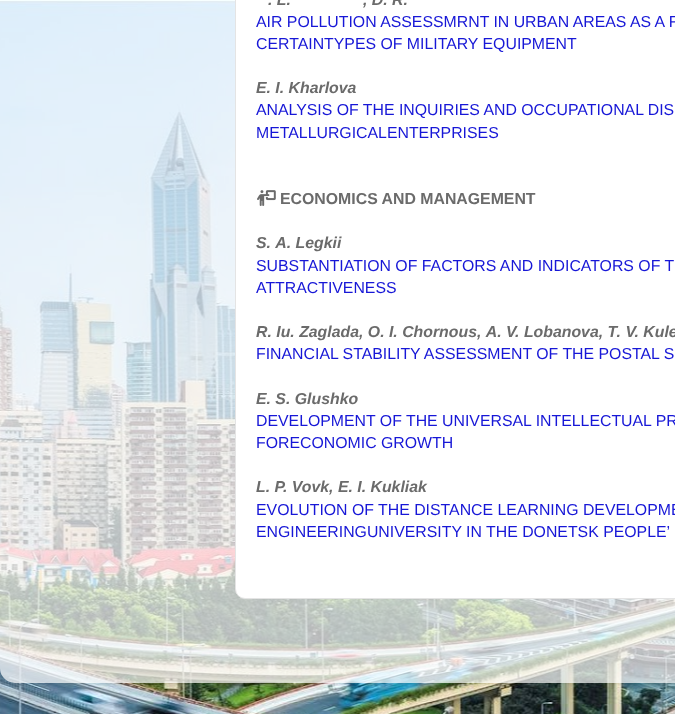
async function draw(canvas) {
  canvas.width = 675;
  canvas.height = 714;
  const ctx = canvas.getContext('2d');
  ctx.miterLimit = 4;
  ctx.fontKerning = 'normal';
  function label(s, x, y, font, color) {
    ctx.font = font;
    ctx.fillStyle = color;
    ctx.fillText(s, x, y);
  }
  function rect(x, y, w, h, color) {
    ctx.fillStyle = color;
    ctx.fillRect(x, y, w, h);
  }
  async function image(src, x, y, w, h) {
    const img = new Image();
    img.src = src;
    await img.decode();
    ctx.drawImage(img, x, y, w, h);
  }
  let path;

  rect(0, 0, 675, 714, '#fff');
  await image('assets/img1.png', 0, 0, 675, 714);
  ctx.save();
  path = new Path2D('M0 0H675V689H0ZM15-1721H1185C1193.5-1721 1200-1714.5 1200-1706V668C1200 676.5 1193.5 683 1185 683H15C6.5 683 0 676.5 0 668V-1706C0-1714.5 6.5-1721 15-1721Z');
  ctx.clip(path, 'evenodd');
  ctx.fillStyle = '#00000026';
  ctx.filter = 'blur(1.5px)';
  ctx.beginPath();
  ctx.roundRect(0, -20, 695, 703, 15);
  ctx.fill();
  ctx.filter = 'none';
  ctx.restore();
  await image('assets/img2.png', 0, 0, 675, 683);
  ctx.beginPath();
  ctx.roundRect(235.5, -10.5, 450, 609, 9.5);
  ctx.fill();
  ctx.strokeStyle = '#e4e4e4';
  ctx.stroke();
  label('. L.', 268, 5, 'italic bold 15.85px Liberation Sans', '#6b6b6b');
  label(', D. R.', 363, 5, 'italic bold 15.85px Liberation Sans', '#6b6b6b');
  label('AIR POLLUTION ASSESSMRNT IN URBAN AREAS AS A R', 256, 27, '15.85px Liberation Sans', '#1717d7');
  label('CERTAINTYPES OF MILITARY EQUIPMENT', 256, 49, '15.85px Liberation Sans', '#1717d7');
  label('Е. I. Kharlova', 256, 93, 'italic bold 15.85px Liberation Sans', '#6b6b6b');
  label('ANALYSIS OF THE INQUIRIES AND OCCUPATIONAL DIS', 256, 115, '15.85px Liberation Sans', '#1717d7');
  label('METALLURGICALENTERPRISES', 256, 138, '15.85px Liberation Sans', '#1717d7');
  await image('assets/img3.png', 257, 190, 19, 16);
  label('ECONOMICS AND MANAGEMENT', 280, 204, 'bold 15.85px Liberation Sans', '#6b6b6b');
  label('S. А. Legkii', 256, 248, 'italic bold 15.85px Liberation Sans', '#6b6b6b');
  label('SUBSTANTIATION OF FACTORS AND INDICATORS OF T', 256, 271, '15.85px Liberation Sans', '#1717d7');
  label('ATTRACTIVENESS', 256, 293, '15.85px Liberation Sans', '#1717d7');
  label('R. Iu. Zaglada, О. I. Chornous, А. V. Lobanova, Т. V. Kule', 256, 337, 'italic bold 15.85px Liberation Sans', '#6b6b6b');
  label('FINANCIAL STABILITY ASSESSMENT OF THE POSTAL S', 256, 359, '15.85px Liberation Sans', '#1717d7');
  label('Е. S. Glushko', 256, 404, 'italic bold 15.85px Liberation Sans', '#6b6b6b');
  label('DEVELOPMENT OF THE UNIVERSAL INTELLECTUAL PR', 256, 426, '15.85px Liberation Sans', '#1717d7');
  label('FORECONOMIC GROWTH', 256, 448, '15.85px Liberation Sans', '#1717d7');
  label('L. P. Vovk, Е. I. Kukliak', 256, 492, 'italic bold 15.85px Liberation Sans', '#6b6b6b');
  label('EVOLUTION OF THE DISTANCE LEARNING DEVELOPME', 256, 515, '15.85px Liberation Sans', '#1717d7');
  label('ENGINEERINGUNIVERSITY IN THE DONETSK PEOPLE’', 256, 537, '15.85px Liberation Sans', '#1717d7');
}

draw(document.querySelector('canvas'));
